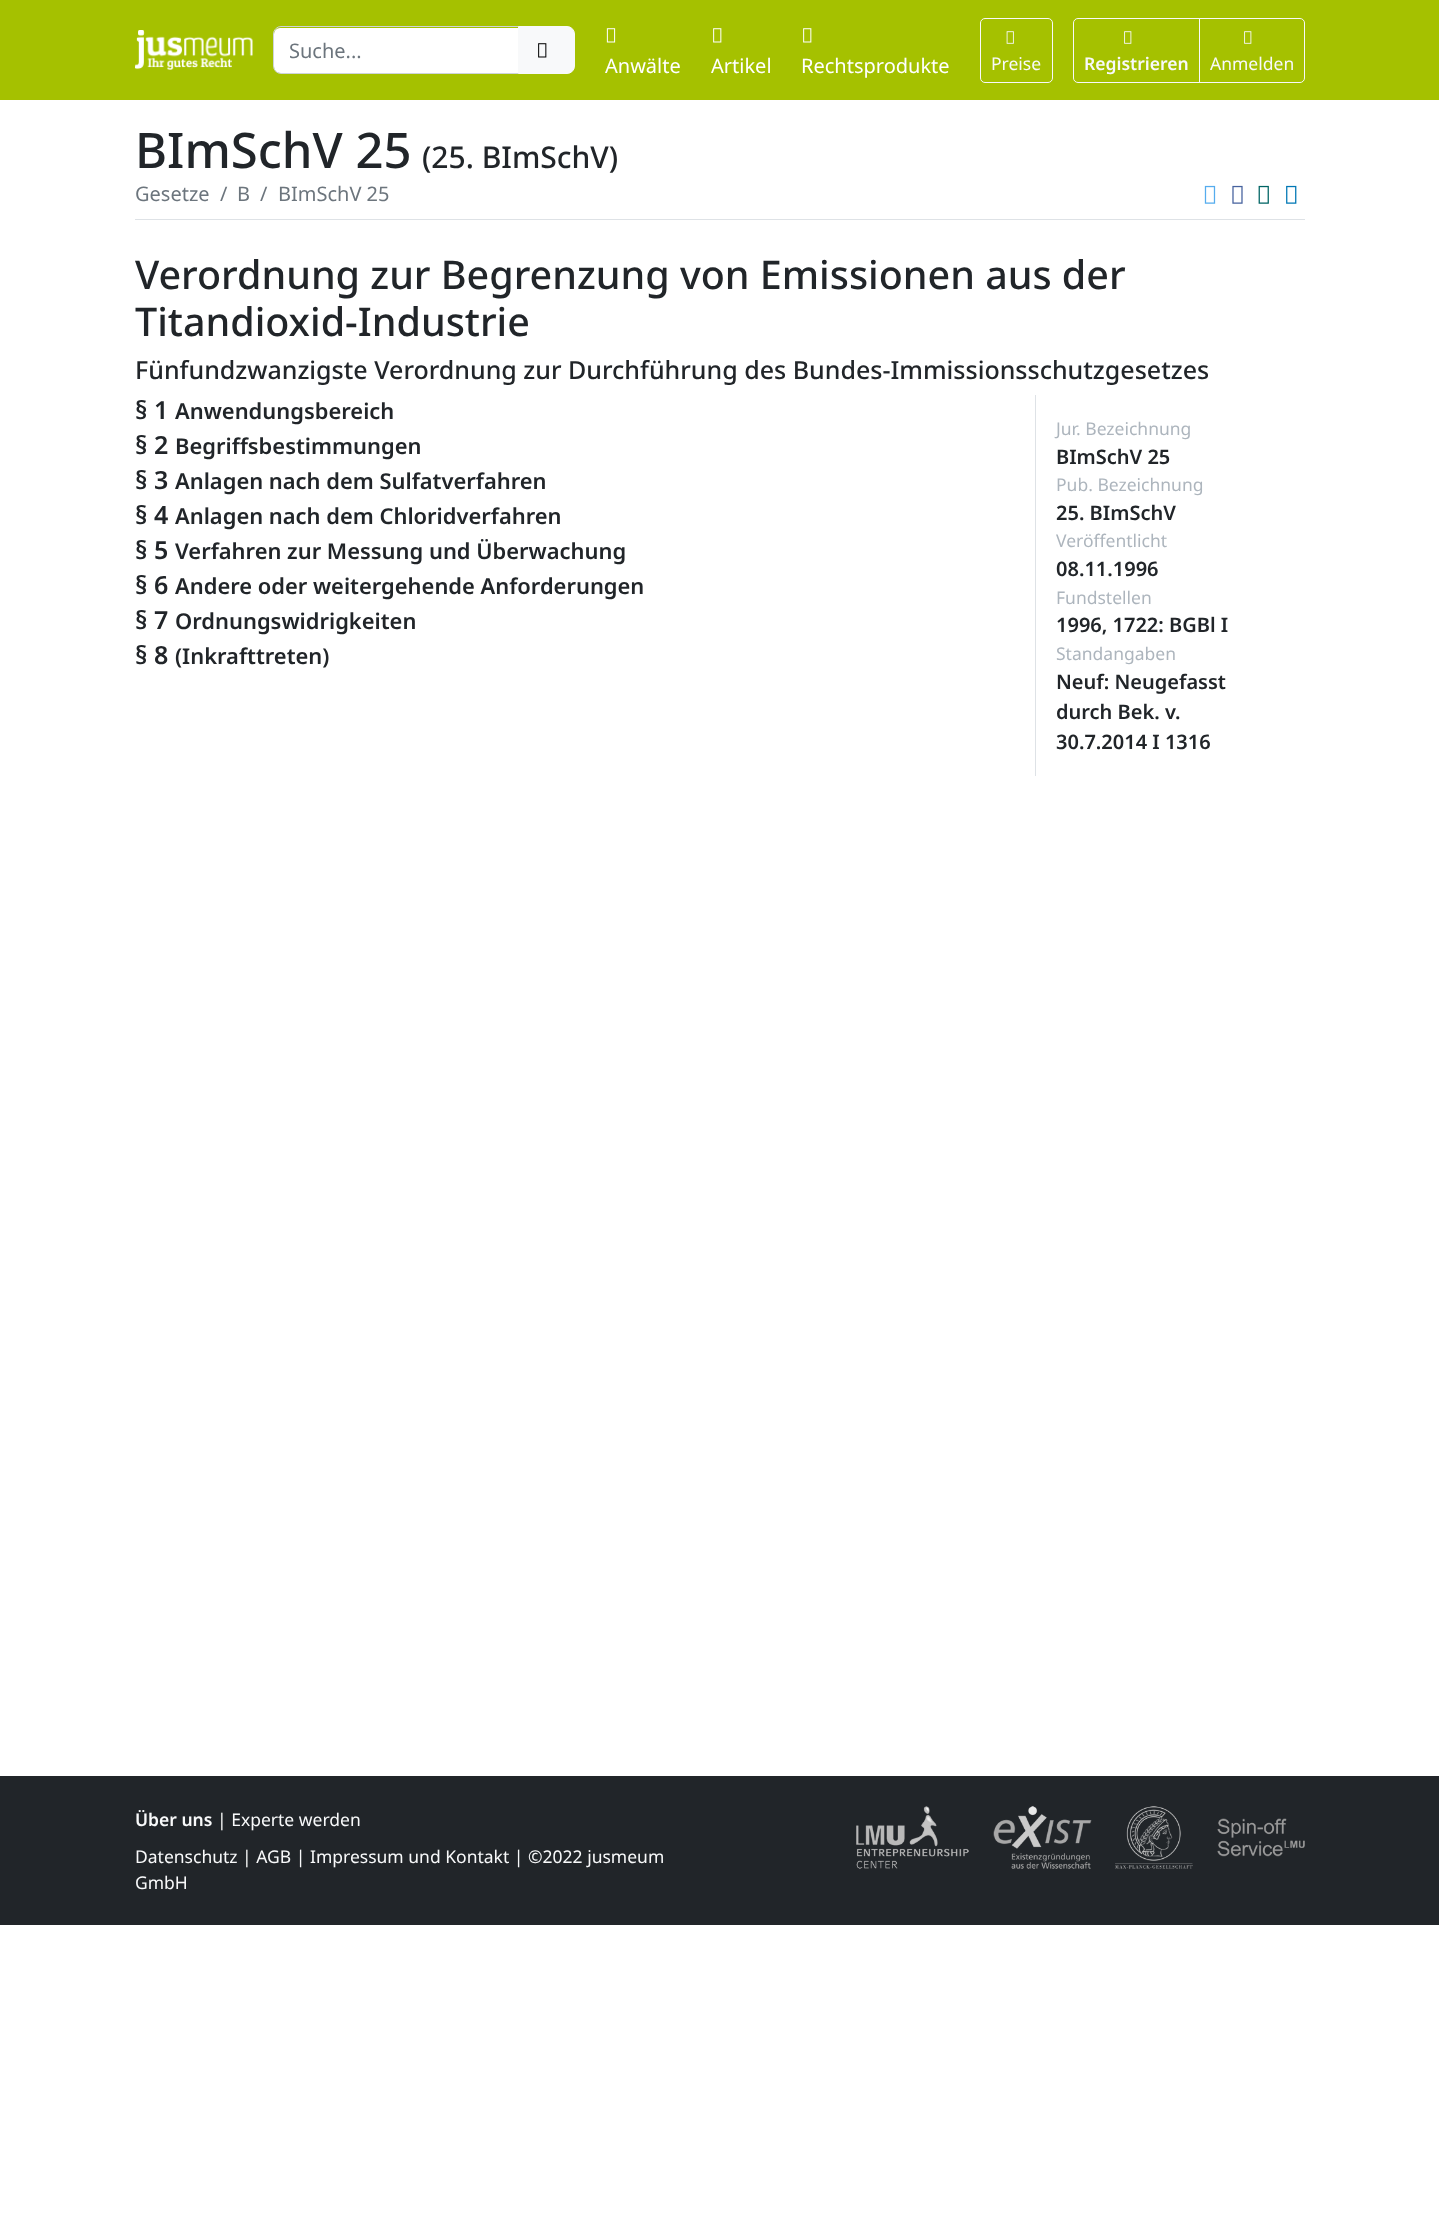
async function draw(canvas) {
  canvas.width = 1439;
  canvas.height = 2235;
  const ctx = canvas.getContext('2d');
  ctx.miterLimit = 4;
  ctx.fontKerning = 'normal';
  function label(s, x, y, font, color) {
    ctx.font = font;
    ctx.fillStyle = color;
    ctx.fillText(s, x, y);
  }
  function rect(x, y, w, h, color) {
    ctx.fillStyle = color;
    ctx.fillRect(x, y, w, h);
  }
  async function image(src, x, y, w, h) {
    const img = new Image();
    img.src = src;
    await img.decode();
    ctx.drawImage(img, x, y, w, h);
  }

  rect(0, 0, 1439, 2235, '#fff');
  rect(0, 0, 1439, 100, '#a5c100');
  await image('assets/img1.png', 135, 30, 118, 40);
  ctx.fillStyle = '#fff';
  ctx.beginPath();
  ctx.roundRect(274, 28, 244, 45, [6, 0, 0, 6]);
  ctx.fill();
  ctx.beginPath();
  ctx.roundRect(273.5, 26.5, 245, 47, [7.5, 0, 0, 7.5]);
  ctx.strokeStyle = '#ced4da';
  ctx.stroke();
  label('Suche...', 289, 58, '20px Noto Sans', '#6c757d');
  ctx.fillStyle = '#f8f9fa';
  ctx.beginPath();
  ctx.roundRect(518.5, 26.5, 56, 47, [0, 7.5, 7.5, 0]);
  ctx.fill();
  ctx.strokeStyle = '#f8f9fa';
  ctx.stroke();
  await image('assets/img2.png', 538, 43, 9, 15);
  await image('assets/img3.png', 606, 28, 10, 15);
  label('Anwälte', 605, 73, '20px Noto Sans', '#fff');
  await image('assets/img4.png', 713, 28, 9, 15);
  label('Artikel', 711, 73, '20px Noto Sans', '#fff');
  await image('assets/img4.png', 803, 28, 9, 15);
  label('Rechtsprodukte', 801, 73, '20px Noto Sans', '#fff');
  ctx.beginPath();
  ctx.roundRect(980.5, 18.5, 72, 64, 4.5);
  ctx.stroke();
  await image('assets/img5.png', 1006, 31, 8, 13);
  label('Preise', 991, 70, '17.5px Noto Sans', '#f8f9fa');
  ctx.beginPath();
  ctx.roundRect(1073.5, 18.5, 126, 64, [4.5, 0, 0, 4.5]);
  ctx.stroke();
  await image('assets/img6.png', 1124, 31, 8, 13);
  label('Registrieren', 1084, 70, '600 17.5px Noto Sans', '#f8f9fa');
  ctx.beginPath();
  ctx.roundRect(1199.5, 18.5, 105, 64, [0, 4.5, 4.5, 0]);
  ctx.stroke();
  await image('assets/img6.png', 1244, 31, 8, 13);
  label('Anmelden', 1210, 70, '17.5px Noto Sans', '#f8f9fa');
  label('BImSchV 25', 135, 168, '500 49px Noto Sans', '#212529');
  label('(25. BImSchV)', 422, 168, '500 30px Noto Sans', '#212529');
  rect(135, 219, 1170, 1, '#dee2e6');
  label('Gesetze', 135, 201, '20px Noto Sans', '#6c757d');
  label('/', 220, 201, '20px Noto Sans', '#6c757d');
  label('B', 237, 201, '20px Noto Sans', '#6c757d');
  label('/', 260, 201, '20px Noto Sans', '#6c757d');
  label('BImSchV 25', 278, 201, '20px Noto Sans', '#6c757d');
  await image('assets/img7.png', 1204, 185, 12, 19);
  await image('assets/img8.png', 1232, 185, 11, 19);
  await image('assets/img9.png', 1258, 185, 11, 19);
  await image('assets/img10.png', 1286, 185, 11, 19);
  label('Verordnung zur Begrenzung von Emissionen aus der', 135, 289, '500 39.45px Noto Sans', '#212529');
  label('Titandioxid-Industrie', 135, 336, '500 39.45px Noto Sans', '#212529');
  label('Fünfundzwanzigste Verordnung zur Durchführung des Bundes-Immissionsschutzgesetzes', 135, 379, '500 25px Noto Sans', '#212529');
  label('§ 1', 135, 419, '600 25px Noto Sans', '#212529');
  label('Anwendungsbereich', 175, 419, '600 21.9px Noto Sans', '#212529');
  label('§ 2', 135, 454, '600 25px Noto Sans', '#212529');
  label('Begriffsbestimmungen', 175, 454, '600 21.9px Noto Sans', '#212529');
  label('§ 3', 135, 489, '600 25px Noto Sans', '#212529');
  label('Anlagen nach dem Sulfatverfahren', 175, 489, '600 21.9px Noto Sans', '#212529');
  label('§ 4', 135, 524, '600 25px Noto Sans', '#212529');
  label('Anlagen nach dem Chloridverfahren', 175, 524, '600 21.9px Noto Sans', '#212529');
  label('§ 5', 135, 559, '600 25px Noto Sans', '#212529');
  label('Verfahren zur Messung und Überwachung', 175, 559, '600 21.9px Noto Sans', '#212529');
  label('§ 6', 135, 594, '600 25px Noto Sans', '#212529');
  label('Andere oder weitergehende Anforderungen', 175, 594, '600 21.9px Noto Sans', '#212529');
  label('§ 7', 135, 629, '600 25px Noto Sans', '#212529');
  label('Ordnungswidrigkeiten', 175, 629, '600 21.9px Noto Sans', '#212529');
  label('§ 8', 135, 664, '600 25px Noto Sans', '#212529');
  label('(Inkrafttreten)', 175, 664, '600 21.9px Noto Sans', '#212529');
  rect(1035, 395, 1, 381, '#dee2e6');
  label('Jur. Bezeichnung', 1056, 435, '17.5px Noto Sans', '#adb5bd');
  label('BImSchV 25', 1056, 464, '600 20px Noto Sans', '#212529');
  label('Pub. Bezeichnung', 1056, 491, '17.5px Noto Sans', '#adb5bd');
  label('25. BImSchV', 1056, 520, '600 20px Noto Sans', '#212529');
  label('Veröffentlicht', 1056, 547, '17.5px Noto Sans', '#adb5bd');
  label('08.11.1996', 1056, 576, '600 20px Noto Sans', '#212529');
  label('Fundstellen', 1056, 604, '17.5px Noto Sans', '#adb5bd');
  label('1996, 1722: BGBl I', 1056, 632, '600 20px Noto Sans', '#212529');
  label('Standangaben', 1056, 660, '17.5px Noto Sans', '#adb5bd');
  label('Neuf: Neugefasst', 1056, 689, '600 20px Noto Sans', '#212529');
  label('durch Bek. v.', 1056, 719, '600 20px Noto Sans', '#212529');
  label('30.7.2014 I 1316', 1056, 749, '600 20px Noto Sans', '#212529');
  rect(0, 1776, 1439, 149, '#212529');
  label('Über uns', 135, 1826, '600 17.5px Noto Sans', '#f8f9fa');
  label('| Experte werden', 217, 1826, '17.5px Noto Sans', '#f8f9fa');
  label('Datenschutz | AGB | Impressum und Kontakt | ©2022 jusmeum', 135, 1863, '17.5px Noto Sans', '#f8f9fa');
  label('GmbH', 135, 1889, '17.5px Noto Sans', '#f8f9fa');
  await image('assets/img11.png', 856, 1806, 113, 63);
  await image('assets/img12.png', 993, 1806, 99, 63);
  await image('assets/img13.png', 1115, 1806, 78, 63);
  await image('assets/img14.png', 1217, 1818, 88, 39);
}

draw(document.querySelector('canvas'));
